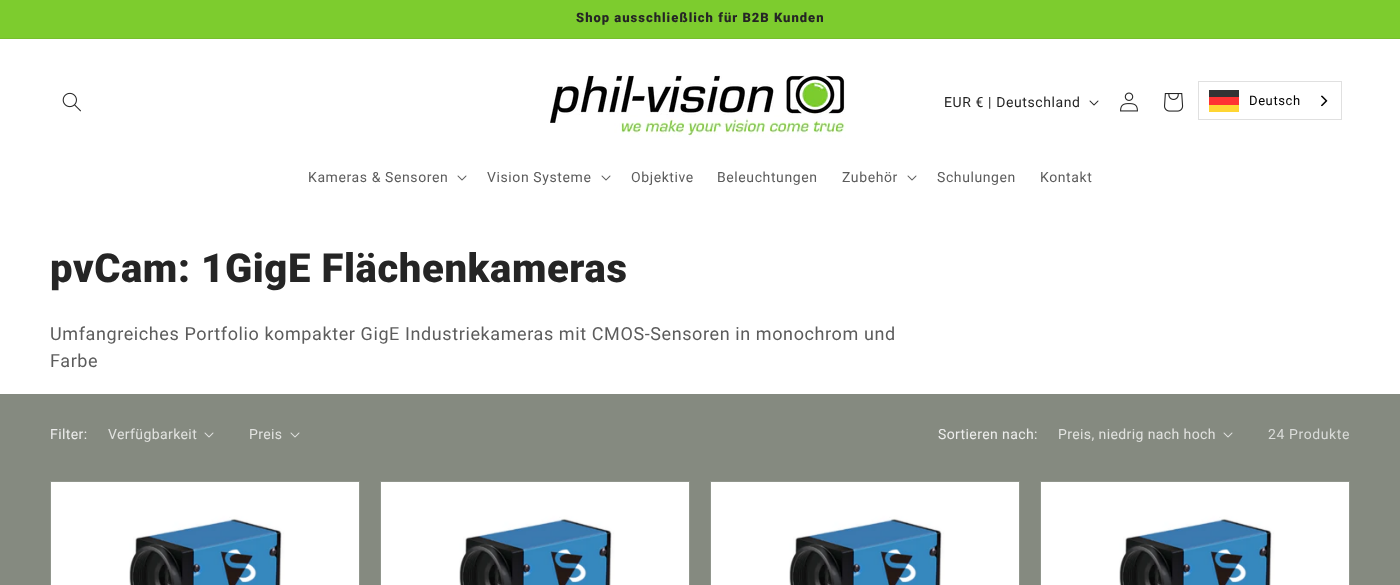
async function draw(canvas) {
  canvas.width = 1400;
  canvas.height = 585;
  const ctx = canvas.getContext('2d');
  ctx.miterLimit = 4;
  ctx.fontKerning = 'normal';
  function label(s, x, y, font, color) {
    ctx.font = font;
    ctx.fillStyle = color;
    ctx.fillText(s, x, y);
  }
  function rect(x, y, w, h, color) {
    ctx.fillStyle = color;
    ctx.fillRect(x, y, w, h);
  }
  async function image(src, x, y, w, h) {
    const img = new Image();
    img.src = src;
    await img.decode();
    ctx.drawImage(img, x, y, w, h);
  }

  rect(0, 0, 1400, 585, '#858a80');
  rect(0, 0, 1400, 38, '#7dcc2e');
  rect(0, 38, 1400, 1, '#76bf2d');
  ctx.letterSpacing = '1px';
  label('Shop ausschließlich für B2B Kunden', 576, 22, '900 13px Roboto', '#252525');
  rect(0, 39, 1400, 355, '#fff');
  await image('assets/img1.png', 62, 92, 19, 20);
  await image('assets/img2.png', 550, 75, 296, 63);
  ctx.letterSpacing = '0.6px';
  label('EUR € | Deutschland', 944, 107, '14px Roboto', '#252525');
  await image('assets/img3.png', 1089, 100, 10, 6);
  await image('assets/img4.png', 1120, 92, 18, 20);
  await image('assets/img5.png', 1164, 93, 20, 19);
  ctx.strokeStyle = '#e0e0e0';
  ctx.strokeRect(1198.5, 81.5, 143, 38);
  rect(1209, 105, 30, 7, '#ffd633');
  rect(1209, 90, 30, 7, '#333334');
  rect(1209, 97, 30, 8, '#f33');
  label('Deutsch', 1249, 105, '13px Roboto', '#000');
  await image('assets/img6.png', 1321, 95, 7, 12);
  label('Kameras & Sensoren', 308, 182, '14px Roboto', '#5c5c5c');
  await image('assets/img7.png', 457, 175, 10, 6);
  label('Vision Systeme', 487, 182, '14px Roboto', '#5c5c5c');
  await image('assets/img7.png', 601, 175, 10, 6);
  label('Objektive', 631, 182, '14px Roboto', '#5c5c5c');
  label('Beleuchtungen', 717, 182, '14px Roboto', '#5c5c5c');
  label('Zubehör', 842, 182, '14px Roboto', '#5c5c5c');
  await image('assets/img7.png', 907, 175, 10, 6);
  label('Schulungen', 937, 182, '14px Roboto', '#5c5c5c');
  label('Kontakt', 1040, 182, '14px Roboto', '#5c5c5c');
  label('pvCam: 1GigE Flächenkameras', 50, 282, '900 40px Roboto', '#252525');
  label('Umfangreiches Portfolio kompakter GigE Industriekameras mit CMOS-Sensoren in monochrom und', 50, 340, '18px Roboto', '#5c5c5c');
  label('Farbe', 50, 367, '18px Roboto', '#5c5c5c');
  ctx.letterSpacing = '0.4px';
  label('Filter:', 50, 439, '14px Roboto', '#ededec');
  label('Verfügbarkeit', 108, 439, '14px Roboto', '#e1e2df');
  await image('assets/img8.png', 204, 432, 10, 6);
  label('Preis', 249, 439, '14px Roboto', '#e1e2df');
  await image('assets/img8.png', 290, 432, 10, 6);
  label('Sortieren nach:', 938, 439, '14px Roboto', '#ededec');
  label('Preis, niedrig nach hoch', 1058, 439, '14px Roboto', '#e1e2df');
  await image('assets/img8.png', 1223, 432, 10, 6);
  ctx.letterSpacing = '0.6px';
  label('24 Produkte', 1268, 439, '14px Roboto', '#dadcd9');
  ctx.strokeStyle = '#91968d';
  ctx.strokeRect(50.5, 481.5, 309, 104);
  await image('assets/img9.png', 51, 482, 308, 103);
  ctx.strokeRect(380.5, 481.5, 309, 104);
  await image('assets/img9.png', 381, 482, 308, 103);
  ctx.strokeRect(710.5, 481.5, 309, 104);
  await image('assets/img10.png', 711, 482, 308, 103);
  ctx.strokeRect(1040.5, 481.5, 309, 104);
  await image('assets/img10.png', 1041, 482, 308, 103);
}

draw(document.querySelector('canvas'));
